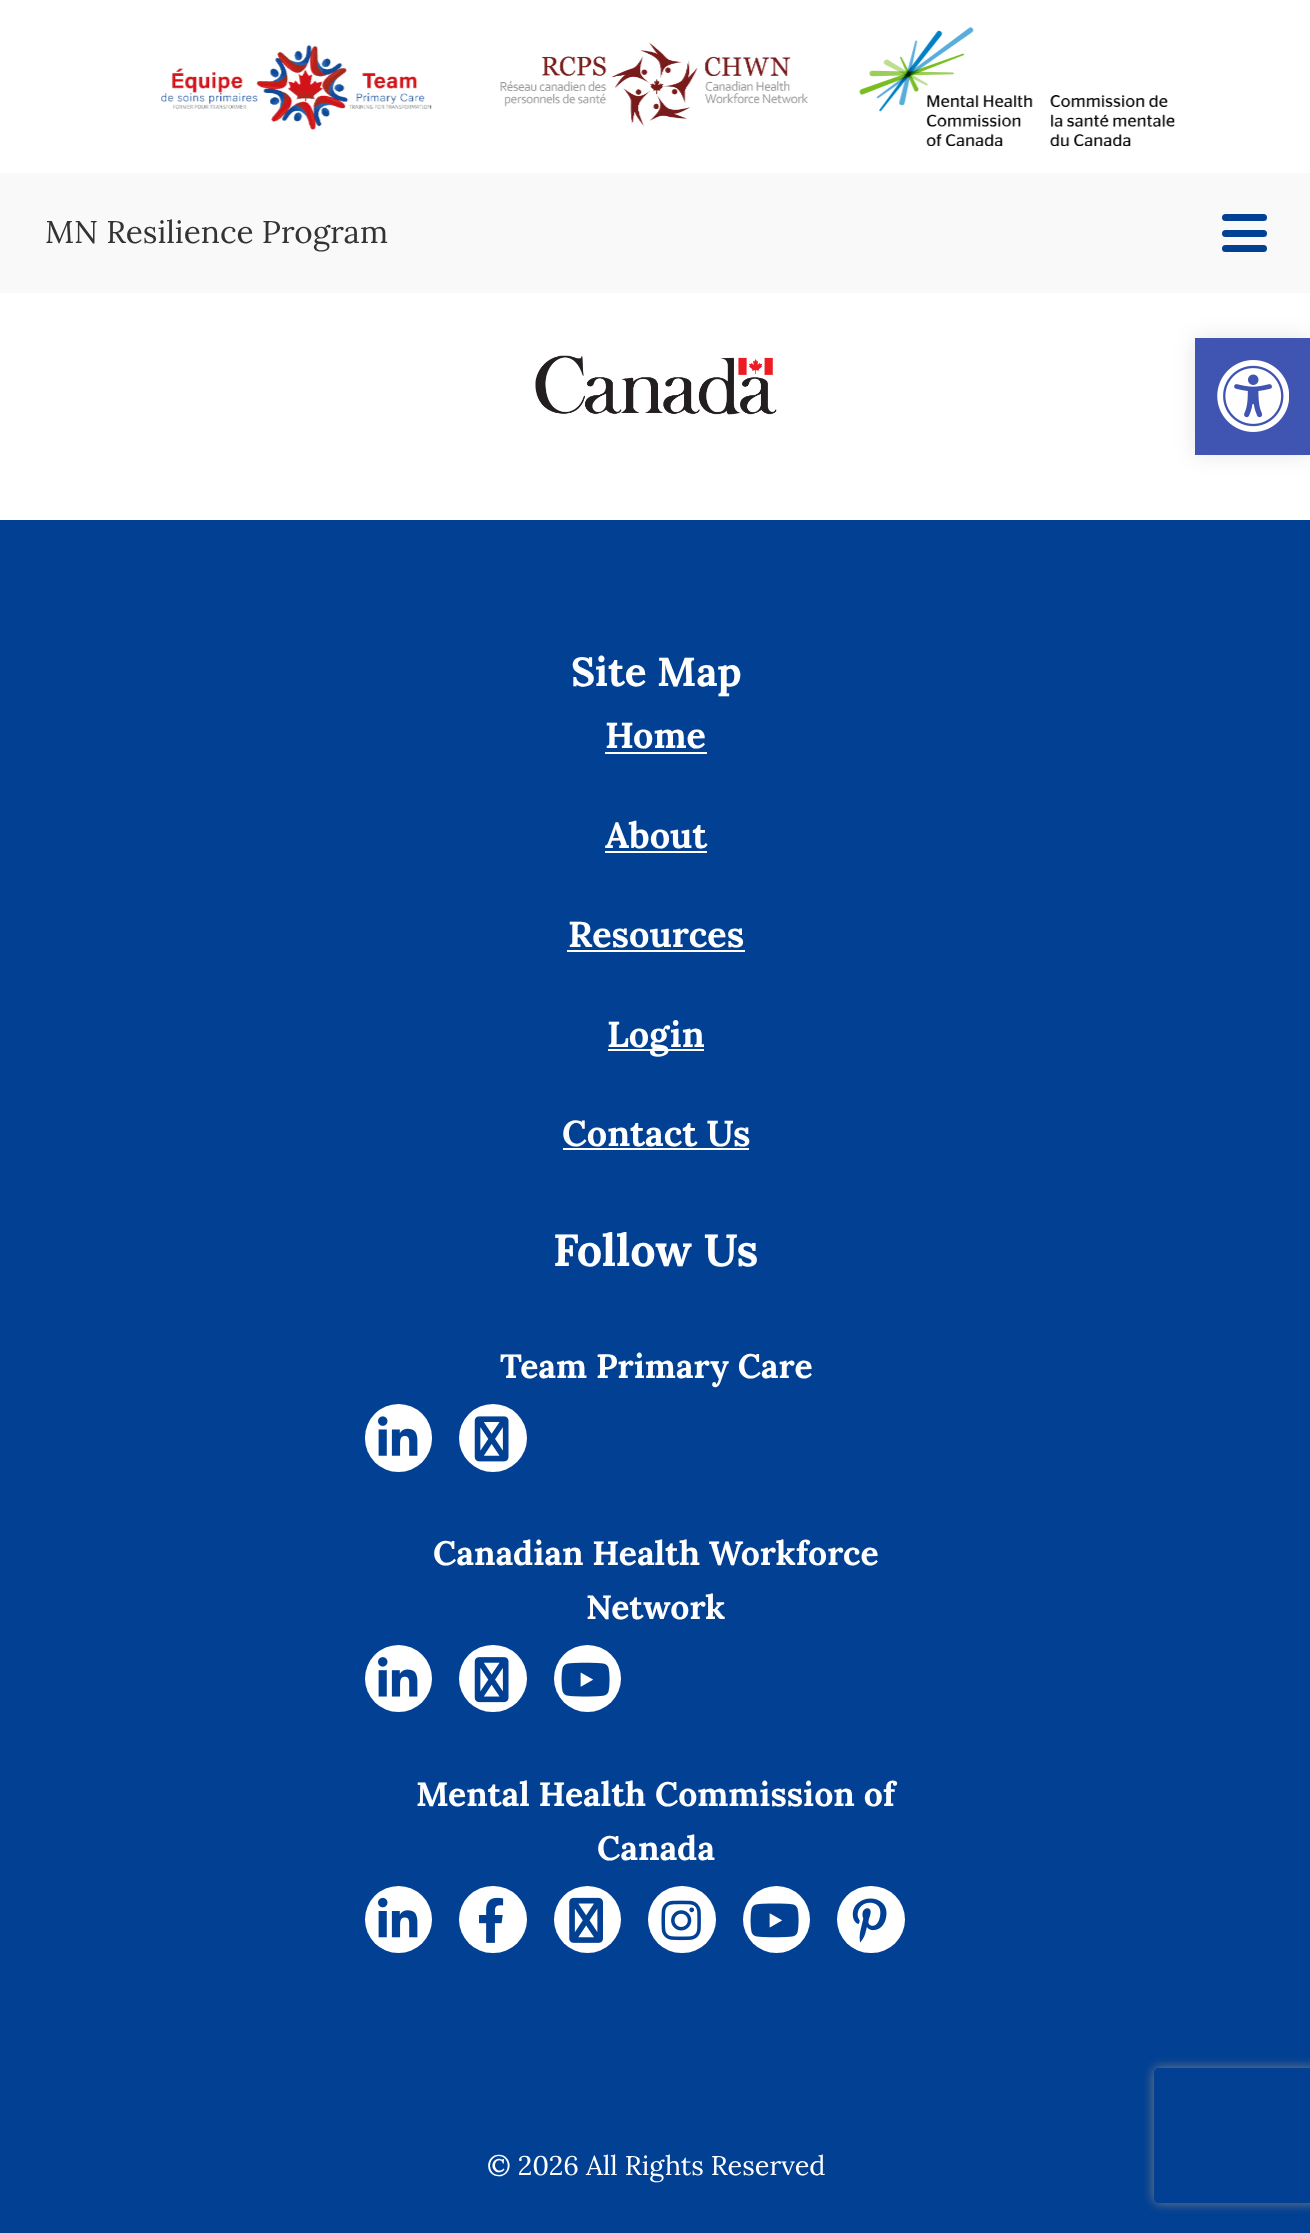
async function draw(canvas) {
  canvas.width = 1310;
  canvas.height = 2233;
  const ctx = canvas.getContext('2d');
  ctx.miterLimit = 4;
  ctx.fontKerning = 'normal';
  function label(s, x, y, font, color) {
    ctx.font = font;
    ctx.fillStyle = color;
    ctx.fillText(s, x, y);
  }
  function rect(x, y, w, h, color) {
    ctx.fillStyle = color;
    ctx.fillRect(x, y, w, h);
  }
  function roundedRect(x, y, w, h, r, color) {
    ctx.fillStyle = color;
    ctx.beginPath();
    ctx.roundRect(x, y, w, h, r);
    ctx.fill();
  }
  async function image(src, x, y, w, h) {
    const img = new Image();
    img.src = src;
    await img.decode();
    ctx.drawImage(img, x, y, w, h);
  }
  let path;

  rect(0, 0, 1310, 2233, '#fff');
  await image('assets/img1.png', 160, 45, 272, 85);
  await image('assets/img2.png', 500, 42, 309, 84);
  await image('assets/img3.png', 859, 27, 316, 119);
  rect(0, 173, 1310, 120, '#f9f9f9');
  label('MN Resilience Program', 45, 243, '31.5px Lora', '#333');
  roundedRect(1222, 214, 45, 7, 3.5, '#024093');
  roundedRect(1222, 230, 45, 7, 3.5, '#024093');
  roundedRect(1222, 245, 45, 7, 3.5, '#024093');
  await image('assets/img4.png', 535, 355, 242, 60);
  rect(0, 520, 1310, 1713, '#024093');
  label('Site Map', 571, 686, 'bold 40.5px Lora', '#fff');
  label('Home', 605, 748, 'bold 36px Lora', '#fff');
  rect(605, 752, 102, 2, '#fff');
  label('About', 605, 848, 'bold 36px Lora', '#fff');
  rect(605, 851, 102, 2, '#fff');
  label('Resources', 568, 947, 'bold 36px Lora', '#fff');
  rect(567, 950, 178, 2, '#fff');
  rect(608, 1049, 96, 2, '#fff');
  label('Login', 607, 1047, 'bold 36px Lora', '#fff');
  label('Contact Us', 562, 1146, 'bold 36px Lora', '#fff');
  rect(563, 1148, 186, 2, '#fff');
  label('Follow Us', 553, 1266, 'bold 45px Lora', '#fff');
  label('Team Primary Care', 500, 1378, 'bold 33.75px Lora', '#fff');
  roundedRect(365, 1404, 67, 68, 33.5, '#fff');
  await image('assets/img5.png', 378, 1416, 40, 40);
  ctx.beginPath();
  ctx.arc(493, 1438, 34, 0, 2 * Math.PI);
  ctx.fill();
  await image('assets/img6.png', 474, 1416, 35, 46);
  label('Canadian Health Workforce', 433, 1565, 'bold 33.75px Lora', '#fff');
  label('Network', 586, 1619, 'bold 33.75px Lora', '#fff');
  ctx.beginPath();
  ctx.arc(398.5, 1678.5, 33.5, 0, 2 * Math.PI);
  ctx.fill();
  await image('assets/img7.png', 378, 1657, 40, 40);
  roundedRect(459, 1645, 68, 67, 33.5, '#fff');
  await image('assets/img8.png', 474, 1657, 35, 46);
  ctx.beginPath();
  ctx.arc(587.5, 1678.5, 33.5, 0, 2 * Math.PI);
  ctx.fill();
  await image('assets/img9.png', 561, 1662, 49, 35);
  label('Mental Health Commission of', 416, 1806, 'bold 33.75px Lora', '#fff');
  label('Canada', 597, 1860, 'bold 33.75px Lora', '#fff');
  ctx.beginPath();
  ctx.arc(398.5, 1919.5, 33.5, 0, 2 * Math.PI);
  ctx.fill();
  await image('assets/img10.png', 378, 1897, 40, 41);
  roundedRect(459, 1886, 68, 67, 33.5, '#fff');
  await image('assets/img11.png', 479, 1897, 25, 46);
  ctx.beginPath();
  ctx.arc(587.5, 1919.5, 33.5, 0, 2 * Math.PI);
  ctx.fill();
  await image('assets/img12.png', 569, 1897, 34, 46);
  roundedRect(648, 1886, 68, 67, 33.5, '#fff');
  await image('assets/img13.png', 661, 1900, 40, 41);
  ctx.beginPath();
  ctx.arc(776.5, 1919.5, 33.5, 0, 2 * Math.PI);
  ctx.fill();
  await image('assets/img14.png', 750, 1903, 49, 35);
  roundedRect(837, 1886, 68, 67, 33.5, '#fff');
  await image('assets/img15.png', 852, 1898, 35, 45);
  label('© 2026 All Rights Reserved', 487, 2175, '27px Lora', '#fff');
  ctx.fillStyle = '#0000001a';
  ctx.filter = 'blur(11px)';
  ctx.beginPath();
  ctx.rect(1195, 338, 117, 117);
  ctx.fill();
  ctx.filter = 'none';
  rect(1195, 338, 115, 117, '#4054b2');
  await image('assets/img16.png', 1217, 360, 72, 72);
  ctx.save();
  path = new Path2D('M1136 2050H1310V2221H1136ZM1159 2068H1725C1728 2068 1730 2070 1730 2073V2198C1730 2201 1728 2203 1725 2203H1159C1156 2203 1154 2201 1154 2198V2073C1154 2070 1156 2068 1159 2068Z');
  ctx.clip(path, 'evenodd');
  ctx.fillStyle = '#808080';
  ctx.filter = 'blur(5.5px)';
  ctx.beginPath();
  ctx.roundRect(1154, 2068, 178, 135, 5);
  ctx.fill();
  ctx.filter = 'none';
  ctx.restore();
}

draw(document.querySelector('canvas'));
